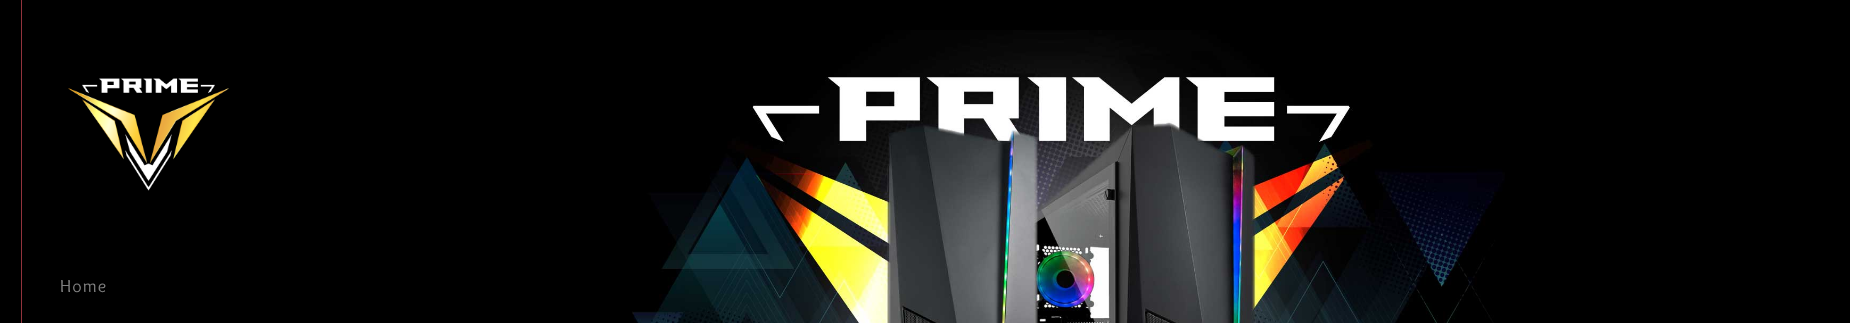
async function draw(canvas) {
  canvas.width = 1850;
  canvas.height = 323;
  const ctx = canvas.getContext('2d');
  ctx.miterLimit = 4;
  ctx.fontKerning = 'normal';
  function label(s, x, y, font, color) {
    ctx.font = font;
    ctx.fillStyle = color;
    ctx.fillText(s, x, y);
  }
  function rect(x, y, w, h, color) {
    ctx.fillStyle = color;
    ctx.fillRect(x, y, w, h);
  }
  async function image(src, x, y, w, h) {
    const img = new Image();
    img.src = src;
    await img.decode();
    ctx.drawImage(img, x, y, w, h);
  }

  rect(0, 0, 1850, 323, '#000');
  rect(21, 0, 1, 323, '#92333c');
  await image('assets/img1.png', 68, 78, 161, 113);
  ctx.letterSpacing = '1px';
  label('Home', 60, 292, '18px Overlock', '#808080');
  await image('assets/img2.png', 632, 30, 873, 293);
}

draw(document.querySelector('canvas'));
